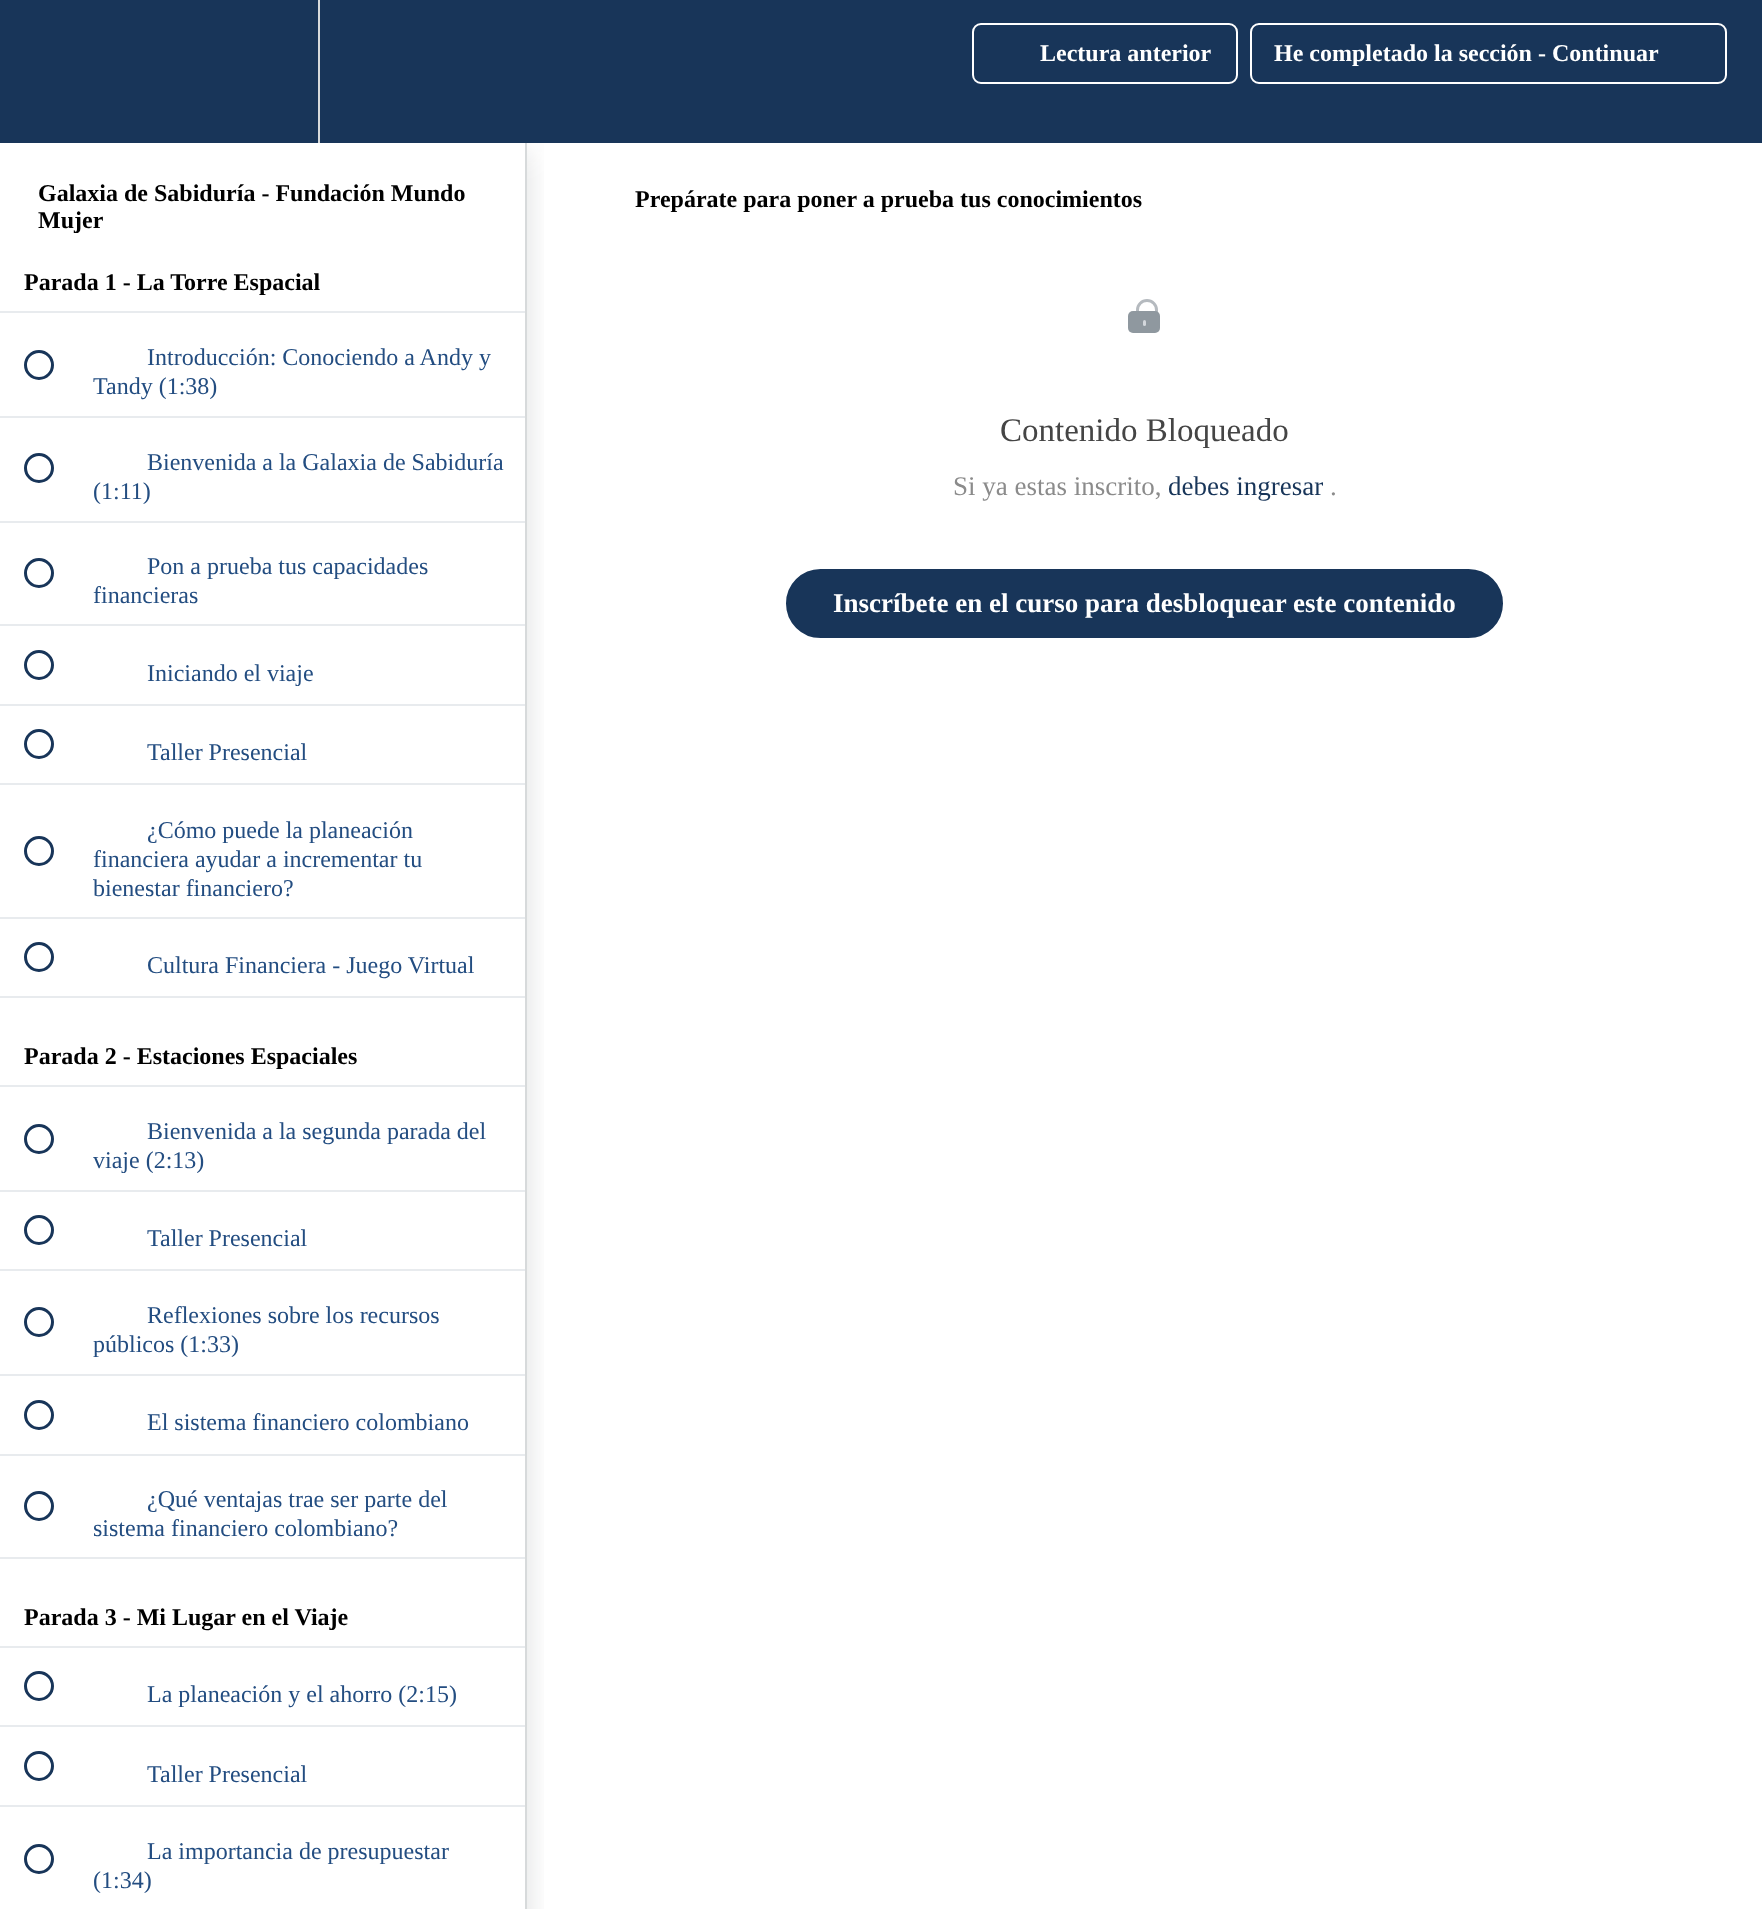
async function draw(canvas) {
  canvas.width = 1762;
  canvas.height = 1909;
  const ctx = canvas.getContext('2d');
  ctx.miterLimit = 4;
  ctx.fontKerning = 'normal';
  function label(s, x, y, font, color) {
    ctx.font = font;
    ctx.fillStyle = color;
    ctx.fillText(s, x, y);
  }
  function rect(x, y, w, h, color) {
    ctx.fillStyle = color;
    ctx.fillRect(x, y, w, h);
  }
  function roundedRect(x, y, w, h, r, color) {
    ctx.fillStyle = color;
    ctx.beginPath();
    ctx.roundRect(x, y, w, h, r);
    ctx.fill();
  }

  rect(0, 0, 1762, 1909, '#fff');
  ctx.save();
  ctx.beginPath();
  ctx.rect(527, 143, 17, 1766);
  ctx.clip();
  ctx.fillStyle = '#20272d26';
  ctx.filter = 'blur(15px)';
  ctx.beginPath();
  ctx.rect(0, 152, 527, 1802);
  ctx.fill();
  ctx.filter = 'none';
  ctx.restore();
  rect(0, 0, 1762, 143, '#183559');
  rect(318, 0, 2, 143, '#d7dadb');
  ctx.beginPath();
  ctx.roundRect(973, 24, 264, 59, 8);
  ctx.strokeStyle = '#fff';
  ctx.lineWidth = 2;
  ctx.stroke();
  label('Lectura anterior', 1040, 61, 'bold 24px Liberation Serif', '#fff');
  ctx.beginPath();
  ctx.roundRect(1251, 24, 475, 59, 8);
  ctx.stroke();
  label('He completado la sección - Continuar', 1274, 61, 'bold 24px Liberation Serif', '#fff');
  rect(525, 143, 2, 1766, '#d7dadb');
  label('Galaxia de Sabiduría - Fundación Mundo', 38, 201, 'bold 24px Liberation Serif', '#000');
  label('Mujer', 38, 228, 'bold 24px Liberation Serif', '#000');
  rect(0, 311, 525, 2, '#e8ebee');
  label('Parada 1 - La Torre Espacial', 24, 290, 'bold 24px Liberation Serif', '#000');
  rect(0, 416, 525, 2, '#e8ebee');
  ctx.beginPath();
  ctx.arc(39, 365, 13.5, 0, 2 * Math.PI);
  ctx.strokeStyle = '#183559';
  ctx.lineWidth = 3;
  ctx.stroke();
  label('Introducción: Conociendo a Andy y', 147, 365, '24px Liberation Serif', '#234d81');
  label('Tandy (1:38)', 93, 394, '24px Liberation Serif', '#234d81');
  rect(0, 521, 525, 2, '#e8ebee');
  ctx.beginPath();
  ctx.arc(39, 468, 13.5, 0, 2 * Math.PI);
  ctx.stroke();
  label('Bienvenida a la Galaxia de Sabiduría', 147, 470, '24px Liberation Serif', '#234d81');
  label('(1:11)', 93, 499, '24px Liberation Serif', '#234d81');
  rect(0, 624, 525, 2, '#e8ebee');
  ctx.beginPath();
  ctx.arc(39, 573, 13.5, 0, 2 * Math.PI);
  ctx.stroke();
  label('Pon a prueba tus capacidades', 147, 574, '24px Liberation Serif', '#234d81');
  label('financieras', 93, 603, '24px Liberation Serif', '#234d81');
  rect(0, 704, 525, 2, '#e8ebee');
  ctx.beginPath();
  ctx.arc(39, 665, 13.5, 0, 2 * Math.PI);
  ctx.stroke();
  label('Iniciando el viaje', 147, 681, '24px Liberation Serif', '#234d81');
  rect(0, 783, 525, 2, '#e8ebee');
  ctx.beginPath();
  ctx.arc(39, 744, 13.5, 0, 2 * Math.PI);
  ctx.stroke();
  label('Taller Presencial', 147, 760, '24px Liberation Serif', '#234d81');
  rect(0, 917, 525, 2, '#e8ebee');
  ctx.beginPath();
  ctx.arc(39, 851, 13.5, 0, 2 * Math.PI);
  ctx.stroke();
  label('¿Cómo puede la planeación', 147, 838, '24px Liberation Serif', '#234d81');
  label('financiera ayudar a incrementar tu', 93, 867, '24px Liberation Serif', '#234d81');
  label('bienestar financiero?', 93, 896, '24px Liberation Serif', '#234d81');
  rect(0, 996, 525, 2, '#e8ebee');
  ctx.beginPath();
  ctx.arc(39, 957, 13.5, 0, 2 * Math.PI);
  ctx.stroke();
  label('Cultura Financiera - Juego Virtual', 147, 973, '24px Liberation Serif', '#234d81');
  rect(0, 1085, 525, 2, '#e8ebee');
  label('Parada 2 - Estaciones Espaciales', 24, 1064, 'bold 24px Liberation Serif', '#000');
  rect(0, 1190, 525, 2, '#e8ebee');
  ctx.beginPath();
  ctx.arc(39, 1139, 13.5, 0, 2 * Math.PI);
  ctx.stroke();
  label('Bienvenida a la segunda parada del', 147, 1139, '24px Liberation Serif', '#234d81');
  label('viaje (2:13)', 93, 1168, '24px Liberation Serif', '#234d81');
  rect(0, 1269, 525, 2, '#e8ebee');
  ctx.beginPath();
  ctx.arc(39, 1230, 13.5, 0, 2 * Math.PI);
  ctx.stroke();
  label('Taller Presencial', 147, 1246, '24px Liberation Serif', '#234d81');
  rect(0, 1374, 525, 2, '#e8ebee');
  ctx.beginPath();
  ctx.arc(39, 1322, 13.5, 0, 2 * Math.PI);
  ctx.stroke();
  label('Reflexiones sobre los recursos', 147, 1323, '24px Liberation Serif', '#234d81');
  label('públicos (1:33)', 93, 1352, '24px Liberation Serif', '#234d81');
  rect(0, 1454, 525, 2, '#e8ebee');
  ctx.beginPath();
  ctx.arc(39, 1415, 13.5, 0, 2 * Math.PI);
  ctx.stroke();
  label('El sistema financiero colombiano', 147, 1430, '24px Liberation Serif', '#234d81');
  rect(0, 1557, 525, 2, '#e8ebee');
  ctx.beginPath();
  ctx.arc(39, 1506, 13.5, 0, 2 * Math.PI);
  ctx.stroke();
  label('¿Qué ventajas trae ser parte del', 147, 1507, '24px Liberation Serif', '#234d81');
  label('sistema financiero colombiano?', 93, 1536, '24px Liberation Serif', '#234d81');
  rect(0, 1646, 525, 2, '#e8ebee');
  label('Parada 3 - Mi Lugar en el Viaje', 24, 1625, 'bold 24px Liberation Serif', '#000');
  rect(0, 1725, 525, 2, '#e8ebee');
  ctx.beginPath();
  ctx.arc(39, 1686, 13.5, 0, 2 * Math.PI);
  ctx.stroke();
  label('La planeación y el ahorro (2:15)', 147, 1702, '24px Liberation Serif', '#234d81');
  rect(0, 1805, 525, 2, '#e8ebee');
  ctx.beginPath();
  ctx.arc(39, 1766, 13.5, 0, 2 * Math.PI);
  ctx.stroke();
  label('Taller Presencial', 147, 1782, '24px Liberation Serif', '#234d81');
  ctx.beginPath();
  ctx.arc(39, 1859, 13.5, 0, 2 * Math.PI);
  ctx.stroke();
  label('La importancia de presupuestar', 147, 1859, '24px Liberation Serif', '#234d81');
  label('(1:34)', 93, 1888, '24px Liberation Serif', '#234d81');
  label('Prepárate para poner a prueba tus conocimientos', 635, 207, 'bold 24px Liberation Serif', '#000');
  ctx.beginPath();
  ctx.roundRect(1137.5, 300.5, 19, 30, 9.5);
  ctx.strokeStyle = '#b5babf';
  ctx.stroke();
  roundedRect(1128, 311, 32, 22, 5, '#8f989f');
  roundedRect(1143, 320, 3, 6, 1.5, '#d3d7dc');
  label('Contenido Bloqueado', 1000, 441, '33px Liberation Serif', '#454545');
  label('Si ya estas inscrito,', 953, 495, '27px Liberation Serif', '#8b8b8b');
  label('debes ingresar', 1168, 495, '27px Liberation Serif', '#183559');
  label('.', 1330, 495, '27px Liberation Serif', '#8b8b8b');
  ctx.fillStyle = '#183559';
  ctx.beginPath();
  ctx.roundRect(787, 570, 715, 67, 33.5);
  ctx.fill();
  ctx.strokeStyle = '#183559';
  ctx.lineWidth = 2;
  ctx.stroke();
  label('Inscríbete en el curso para desbloquear este contenido', 833, 612, 'bold 27px Liberation Serif', '#fff');
}

draw(document.querySelector('canvas'));
